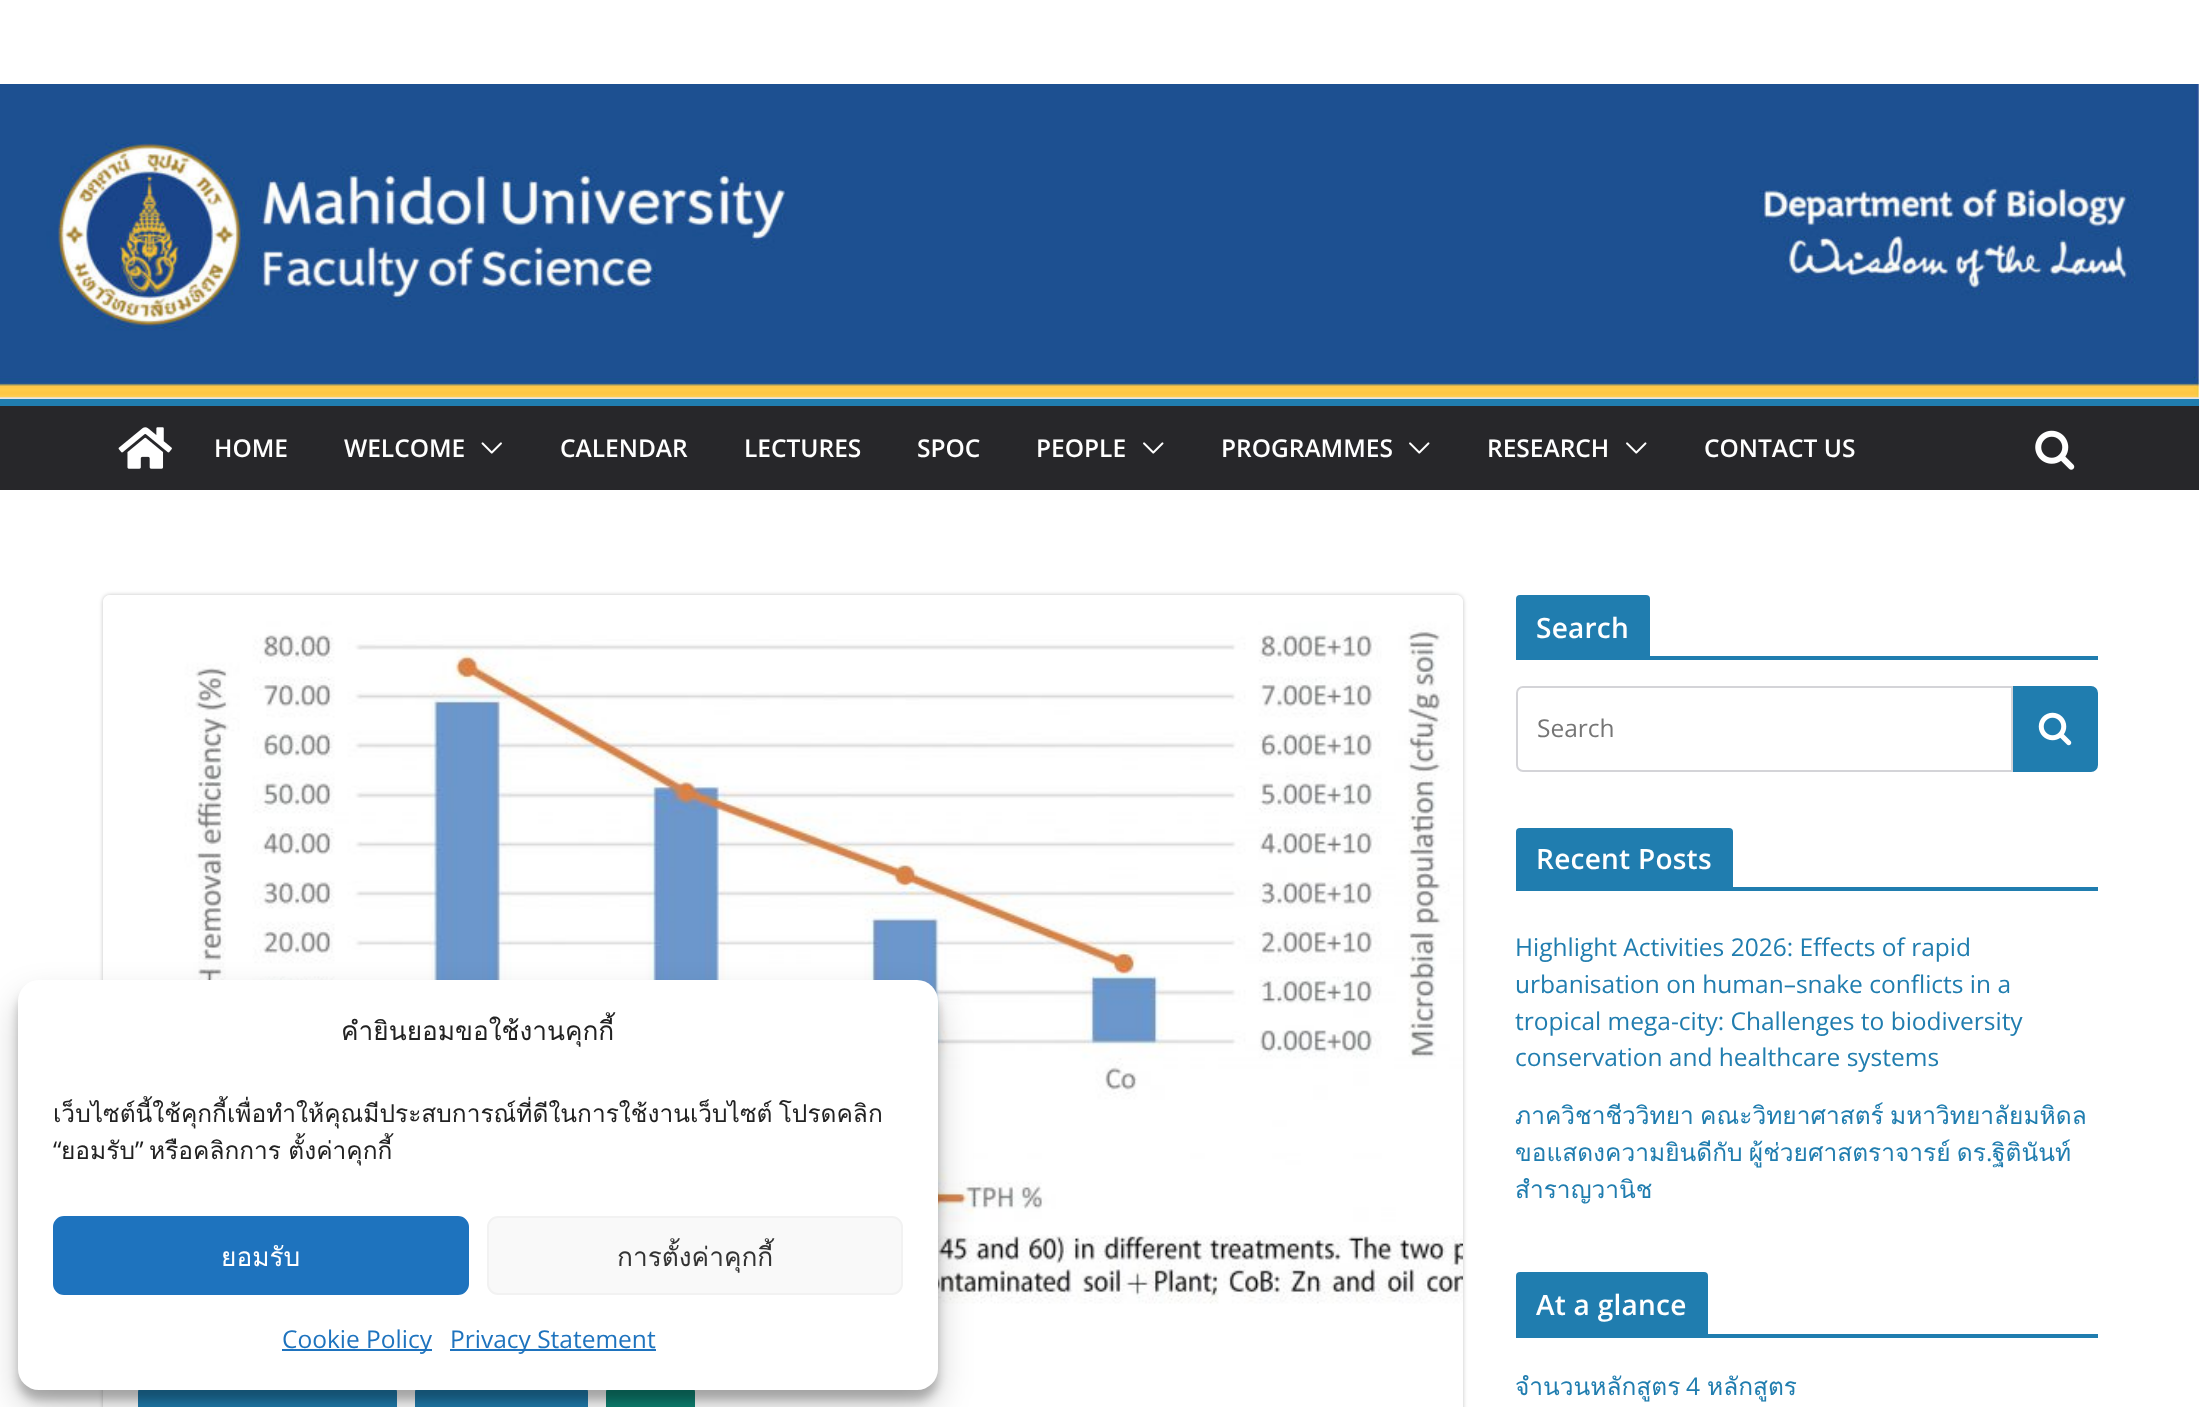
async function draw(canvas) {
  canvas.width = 2199;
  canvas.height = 1407;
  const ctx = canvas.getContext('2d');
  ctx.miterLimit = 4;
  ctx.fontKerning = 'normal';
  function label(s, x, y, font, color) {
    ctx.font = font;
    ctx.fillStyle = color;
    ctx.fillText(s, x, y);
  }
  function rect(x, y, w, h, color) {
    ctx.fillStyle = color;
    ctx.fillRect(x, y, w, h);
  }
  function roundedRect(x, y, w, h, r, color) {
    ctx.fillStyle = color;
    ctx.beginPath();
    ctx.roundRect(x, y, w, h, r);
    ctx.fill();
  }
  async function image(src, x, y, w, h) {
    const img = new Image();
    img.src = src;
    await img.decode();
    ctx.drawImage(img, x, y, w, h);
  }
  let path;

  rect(0, 0, 2199, 1407, '#fff');
  rect(0, 397, 2199, 2, '#e4e4e7');
  await image('assets/img1.png', 0, 84, 2199, 314);
  rect(0, 406, 2199, 84, '#27272a');
  rect(0, 399, 2199, 7, '#207daf');
  await image('assets/img2.png', 118, 427, 54, 42);
  label('HOME', 214, 457, '600 24.5px Open Sans', '#fff');
  label('WELCOME', 344, 457, '600 24.5px Open Sans', '#fff');
  await image('assets/img3.png', 481, 442, 21, 12);
  label('CALENDAR', 560, 457, '600 24.5px Open Sans', '#fff');
  label('LECTURES', 744, 457, '600 24.5px Open Sans', '#fff');
  label('SPOC', 917, 457, '600 24.5px Open Sans', '#fff');
  label('PEOPLE', 1036, 457, '600 24.5px Open Sans', '#fff');
  await image('assets/img4.png', 1143, 442, 21, 12);
  label('PROGRAMMES', 1221, 457, '600 24.5px Open Sans', '#fff');
  await image('assets/img4.png', 1409, 442, 21, 12);
  label('RESEARCH', 1487, 457, '600 24.5px Open Sans', '#fff');
  await image('assets/img4.png', 1626, 442, 21, 12);
  label('CONTACT US', 1704, 457, '600 24.5px Open Sans', '#fff');
  await image('assets/img5.png', 2035, 430, 40, 40);
  ctx.save();
  path = new Path2D('M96 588H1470V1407H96ZM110 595H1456C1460 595 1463 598 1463 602V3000C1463 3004 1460 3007 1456 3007H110C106 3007 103 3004 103 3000V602C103 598 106 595 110 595Z');
  ctx.clip(path, 'evenodd');
  ctx.fillStyle = '#0000003d';
  ctx.filter = 'blur(2px)';
  ctx.beginPath();
  ctx.roundRect(103, 595, 1360, 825, 7);
  ctx.fill();
  ctx.filter = 'none';
  ctx.restore();
  await image('assets/img6.png', 103, 595, 1360, 757);
  roundedRect(138, 1388, 259, 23, 4, '#207daf');
  roundedRect(415, 1388, 173, 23, 4, '#207daf');
  roundedRect(606, 1388, 89, 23, 4, '#0e8474');
  rect(1516, 656, 582, 4, '#207daf');
  ctx.beginPath();
  ctx.roundRect(1516, 595, 134, 61, [4, 4, 0, 0]);
  ctx.fill();
  ctx.letterSpacing = '0.25px';
  label('Search', 1536, 638, '600 28px Open Sans', '#fff');
  ctx.beginPath();
  ctx.roundRect(1517, 687, 495, 84, [6, 0, 0, 6]);
  ctx.strokeStyle = '#d4d4d8';
  ctx.lineWidth = 2;
  ctx.stroke();
  ctx.letterSpacing = '0px';
  label('Search', 1537, 737, '24.5px Open Sans', '#757575');
  ctx.fillStyle = '#207daf';
  ctx.beginPath();
  ctx.roundRect(2014, 687, 83, 84, [0, 6, 6, 0]);
  ctx.fill();
  ctx.strokeStyle = '#207daf';
  ctx.stroke();
  await image('assets/img7.png', 2038, 712, 34, 34);
  rect(1516, 887, 582, 4, '#207daf');
  ctx.beginPath();
  ctx.roundRect(1516, 828, 217, 59, [4, 4, 0, 0]);
  ctx.fill();
  ctx.letterSpacing = '0.25px';
  label('Recent Posts', 1536, 869, '600 28px Open Sans', '#fff');
  ctx.letterSpacing = '0px';
  label('Highlight Activities 2026: Effects of rapid', 1515, 956, '24.5px Open Sans', '#207daf');
  label('urbanisation on human–snake conflicts in a', 1515, 993, '24.5px Open Sans', '#207daf');
  label('tropical mega-city: Challenges to biodiversity', 1515, 1030, '24.5px Open Sans', '#207daf');
  label('conservation and healthcare systems', 1515, 1066, '24.5px Open Sans', '#207daf');
  ctx.wordSpacing = '-2px';
  label('ภาควิชาชีววิทยา คณะวิทยาศาสตร์ มหาวิทยาลัยมหิดล', 1515, 1124, '24.5px Loma', '#207daf');
  label('ขอแสดงความยินดีกับ ผู้ช่วยศาสตราจารย์ ดร', 1515, 1161, '24.5px Loma', '#207daf');
  ctx.wordSpacing = '0px';
  label('.', 1986, 1161, '24.5px Open Sans', '#207daf');
  label('ฐิตินันท์', 1992, 1161, '24.5px Loma', '#207daf');
  label('สำราญวานิช', 1515, 1198, '24.5px Loma', '#207daf');
  rect(1516, 1334, 582, 4, '#207daf');
  ctx.beginPath();
  ctx.roundRect(1516, 1272, 192, 62, [4, 4, 0, 0]);
  ctx.fill();
  ctx.letterSpacing = '0.25px';
  label('At a glance', 1536, 1315, '600 28px Open Sans', '#fff');
  ctx.letterSpacing = '0px';
  label('จำนวนหลักสูตร', 1515, 1395, '24.5px Loma', '#207daf');
  label('4', 1686, 1395, '24.5px Open Sans', '#207daf');
  label('หลักสูตร', 1707, 1395, '24.5px Loma', '#207daf');
  ctx.fillStyle = '#0000003b';
  ctx.filter = 'blur(5px)';
  ctx.beginPath();
  ctx.roundRect(18, 991, 920, 409, 21);
  ctx.fill();
  ctx.filter = 'none';
  ctx.fillStyle = '#00000030';
  ctx.filter = 'blur(17.5px)';
  ctx.beginPath();
  ctx.roundRect(18, 998, 920, 409, 21);
  ctx.fill();
  ctx.filter = 'none';
  roundedRect(18, 980, 920, 410, 21, '#fff');
  label('คำยินยอมขอใช้งานคุกกี้', 341, 1040, '26.25px Loma', '#222');
  ctx.save();
  ctx.beginPath();
  ctx.rect(53, 1094, 850, 82);
  ctx.clip();
  ctx.wordSpacing = '-2px';
  label('เว็บไซต์นี้ใช้คุกกี้เพื่อทำให้คุณมีประสบการณ์ที่ดีในการใช้งานเว็บไซต์ โปรดคลิก', 53, 1122, '24.5px Loma', '#222');
  ctx.restore();
  label('“', 53, 1159, '24.5px Open Sans', '#222');
  label('ยอมรับ', 61, 1159, '24.5px Loma', '#222');
  label('”', 135, 1159, '24.5px Open Sans', '#222');
  ctx.wordSpacing = '-1px';
  label('หรือคลิกการ ตั้งค่าคุกกี้', 149, 1159, '24.5px Loma', '#222');
  ctx.fillStyle = '#1e73be';
  ctx.beginPath();
  ctx.roundRect(54, 1217, 414, 77, 10);
  ctx.fill();
  ctx.strokeStyle = '#1e73be';
  ctx.stroke();
  ctx.wordSpacing = '0px';
  label('ยอมรับ', 221, 1266, '26.25px Loma', '#fff');
  ctx.fillStyle = '#f9f9f9';
  ctx.beginPath();
  ctx.roundRect(488, 1217, 414, 77, 10);
  ctx.fill();
  ctx.strokeStyle = '#f2f2f2';
  ctx.stroke();
  label('การตั้งค่าคุกกี้', 617, 1266, '26.25px Loma', '#333');
  rect(282, 1349, 150, 2, '#1e73be');
  label('Cookie Policy', 282, 1348, '24.5px Open Sans', '#1e73be');
  rect(450, 1349, 206, 2, '#1e73be');
  label('Privacy Statement', 450, 1348, '24.5px Open Sans', '#1e73be');
}

draw(document.querySelector('canvas'));
